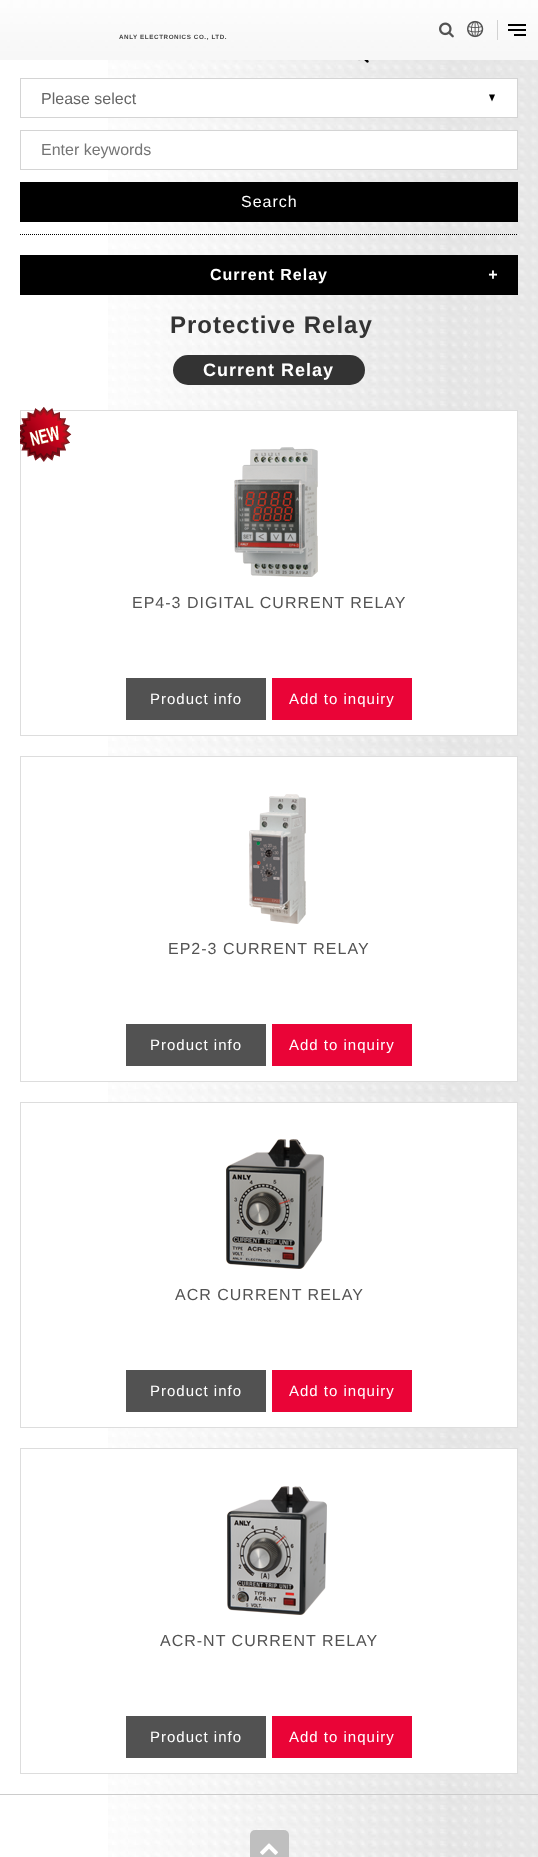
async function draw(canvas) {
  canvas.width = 538;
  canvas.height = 1857;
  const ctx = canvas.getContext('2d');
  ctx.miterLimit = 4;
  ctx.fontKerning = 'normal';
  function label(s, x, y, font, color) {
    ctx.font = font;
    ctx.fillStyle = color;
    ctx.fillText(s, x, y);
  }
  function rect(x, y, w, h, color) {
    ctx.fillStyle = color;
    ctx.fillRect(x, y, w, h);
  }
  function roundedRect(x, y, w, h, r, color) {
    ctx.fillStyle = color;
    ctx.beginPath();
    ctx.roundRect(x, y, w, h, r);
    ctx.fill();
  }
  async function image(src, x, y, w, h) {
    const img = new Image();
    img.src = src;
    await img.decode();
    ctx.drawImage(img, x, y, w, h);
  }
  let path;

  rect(0, 0, 538, 1857, '#fff');
  await image('assets/img1.png', 108, 60, 430, 1797);
  await image('assets/img2.png', 0, 0, 538, 60);
  await image('assets/img3.png', 439, 22, 15, 16);
  await image('assets/img4.png', 467, 20, 17, 18);
  rect(497, 20, 1, 20, '#d2d2d2');
  rect(508, 24, 18, 2, '#000');
  rect(508, 29, 18, 2, '#000');
  rect(514, 34, 12, 2, '#000');
  ctx.letterSpacing = '0.6px';
  label('ANLY ELECTRONICS CO., LTD.', 119, 39, 'bold 6.25px Liberation Sans', '#444');
  path = new Path2D('M20 234.5H518');
  ctx.strokeStyle = '#000';
  ctx.setLineDash([1, 1]);
  ctx.stroke(path);
  await image('assets/img5.png', 358, 60, 11, 3);
  rect(108, 79, 409, 38, '#fff');
  ctx.strokeStyle = '#d4d4d4';
  ctx.setLineDash([]);
  ctx.strokeRect(20.5, 78.5, 497, 39);
  ctx.letterSpacing = '0px';
  label('Please select', 41, 104, '16px Liberation Sans', '#666');
  ctx.fillStyle = '#000';
  path = new Path2D('M489 94.5H495L492 101.5Z');
  ctx.fill(path);
  rect(108, 131, 409, 38, '#fff');
  ctx.strokeRect(20.5, 130.5, 497, 39);
  label('Enter keywords', 41, 155, '16px Liberation Sans', '#757575');
  rect(20, 182, 498, 40, '#000');
  ctx.letterSpacing = '1px';
  label('Search', 241, 207, '16px Liberation Sans', '#fff');
  rect(20, 255, 498, 40, '#000');
  label('Current Relay', 210, 280, 'bold 16px Liberation Sans', '#fff');
  label('+', 488, 280, 'italic bold 16px Liberation Sans', '#fff');
  label('Protective Relay', 170, 333, 'bold 24px Liberation Sans', '#333');
  roundedRect(173, 355, 192, 30, 15, '#333');
  label('Current Relay', 203, 376, 'bold 18px Liberation Sans', '#fff');
  rect(108, 411, 409, 324, '#fff');
  ctx.strokeStyle = '#ddd';
  ctx.strokeRect(20.5, 410.5, 497, 325);
  await image('assets/img6.png', 20, 407, 52, 55);
  await image('assets/img7.png', 234, 447, 84, 130);
  label('EP4-3 DIGITAL CURRENT RELAY', 132, 608, '16px Liberation Sans', '#535353');
  rect(126, 678, 140, 42, '#525252');
  label('Product info', 150, 704, '15px Liberation Sans', '#fff');
  rect(272, 678, 140, 42, '#ea0437');
  label('Add to inquiry', 289, 704, '15px Liberation Sans', '#fff');
  rect(108, 757, 409, 324, '#fff');
  ctx.strokeRect(20.5, 756.5, 497, 325);
  await image('assets/img8.png', 249, 794, 57, 130);
  label('EP2-3 CURRENT RELAY', 168, 954, '16px Liberation Sans', '#535353');
  rect(126, 1024, 140, 42, '#525252');
  label('Product info', 150, 1050, '15px Liberation Sans', '#fff');
  rect(272, 1024, 140, 42, '#ea0437');
  label('Add to inquiry', 289, 1050, '15px Liberation Sans', '#fff');
  rect(108, 1103, 409, 324, '#fff');
  ctx.strokeRect(20.5, 1102.5, 497, 325);
  await image('assets/img9.png', 226, 1139, 98, 130);
  label('ACR CURRENT RELAY', 175, 1300, '16px Liberation Sans', '#535353');
  rect(126, 1370, 140, 42, '#525252');
  label('Product info', 150, 1396, '15px Liberation Sans', '#fff');
  rect(272, 1370, 140, 42, '#ea0437');
  label('Add to inquiry', 289, 1396, '15px Liberation Sans', '#fff');
  rect(108, 1449, 409, 324, '#fff');
  ctx.strokeRect(20.5, 1448.5, 497, 325);
  await image('assets/img10.png', 227, 1486, 100, 129);
  label('ACR-NT CURRENT RELAY', 160, 1646, '16px Liberation Sans', '#535353');
  rect(126, 1716, 140, 42, '#525252');
  label('Product info', 150, 1742, '15px Liberation Sans', '#fff');
  rect(272, 1716, 140, 42, '#ea0437');
  label('Add to inquiry', 289, 1742, '15px Liberation Sans', '#fff');
  rect(0, 1794, 538, 1, '#ccc');
  roundedRect(250, 1830, 39, 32, 5, '#bfbfbf');
  await image('assets/img11.png', 260, 1843, 18, 12);
}

draw(document.querySelector('canvas'));
